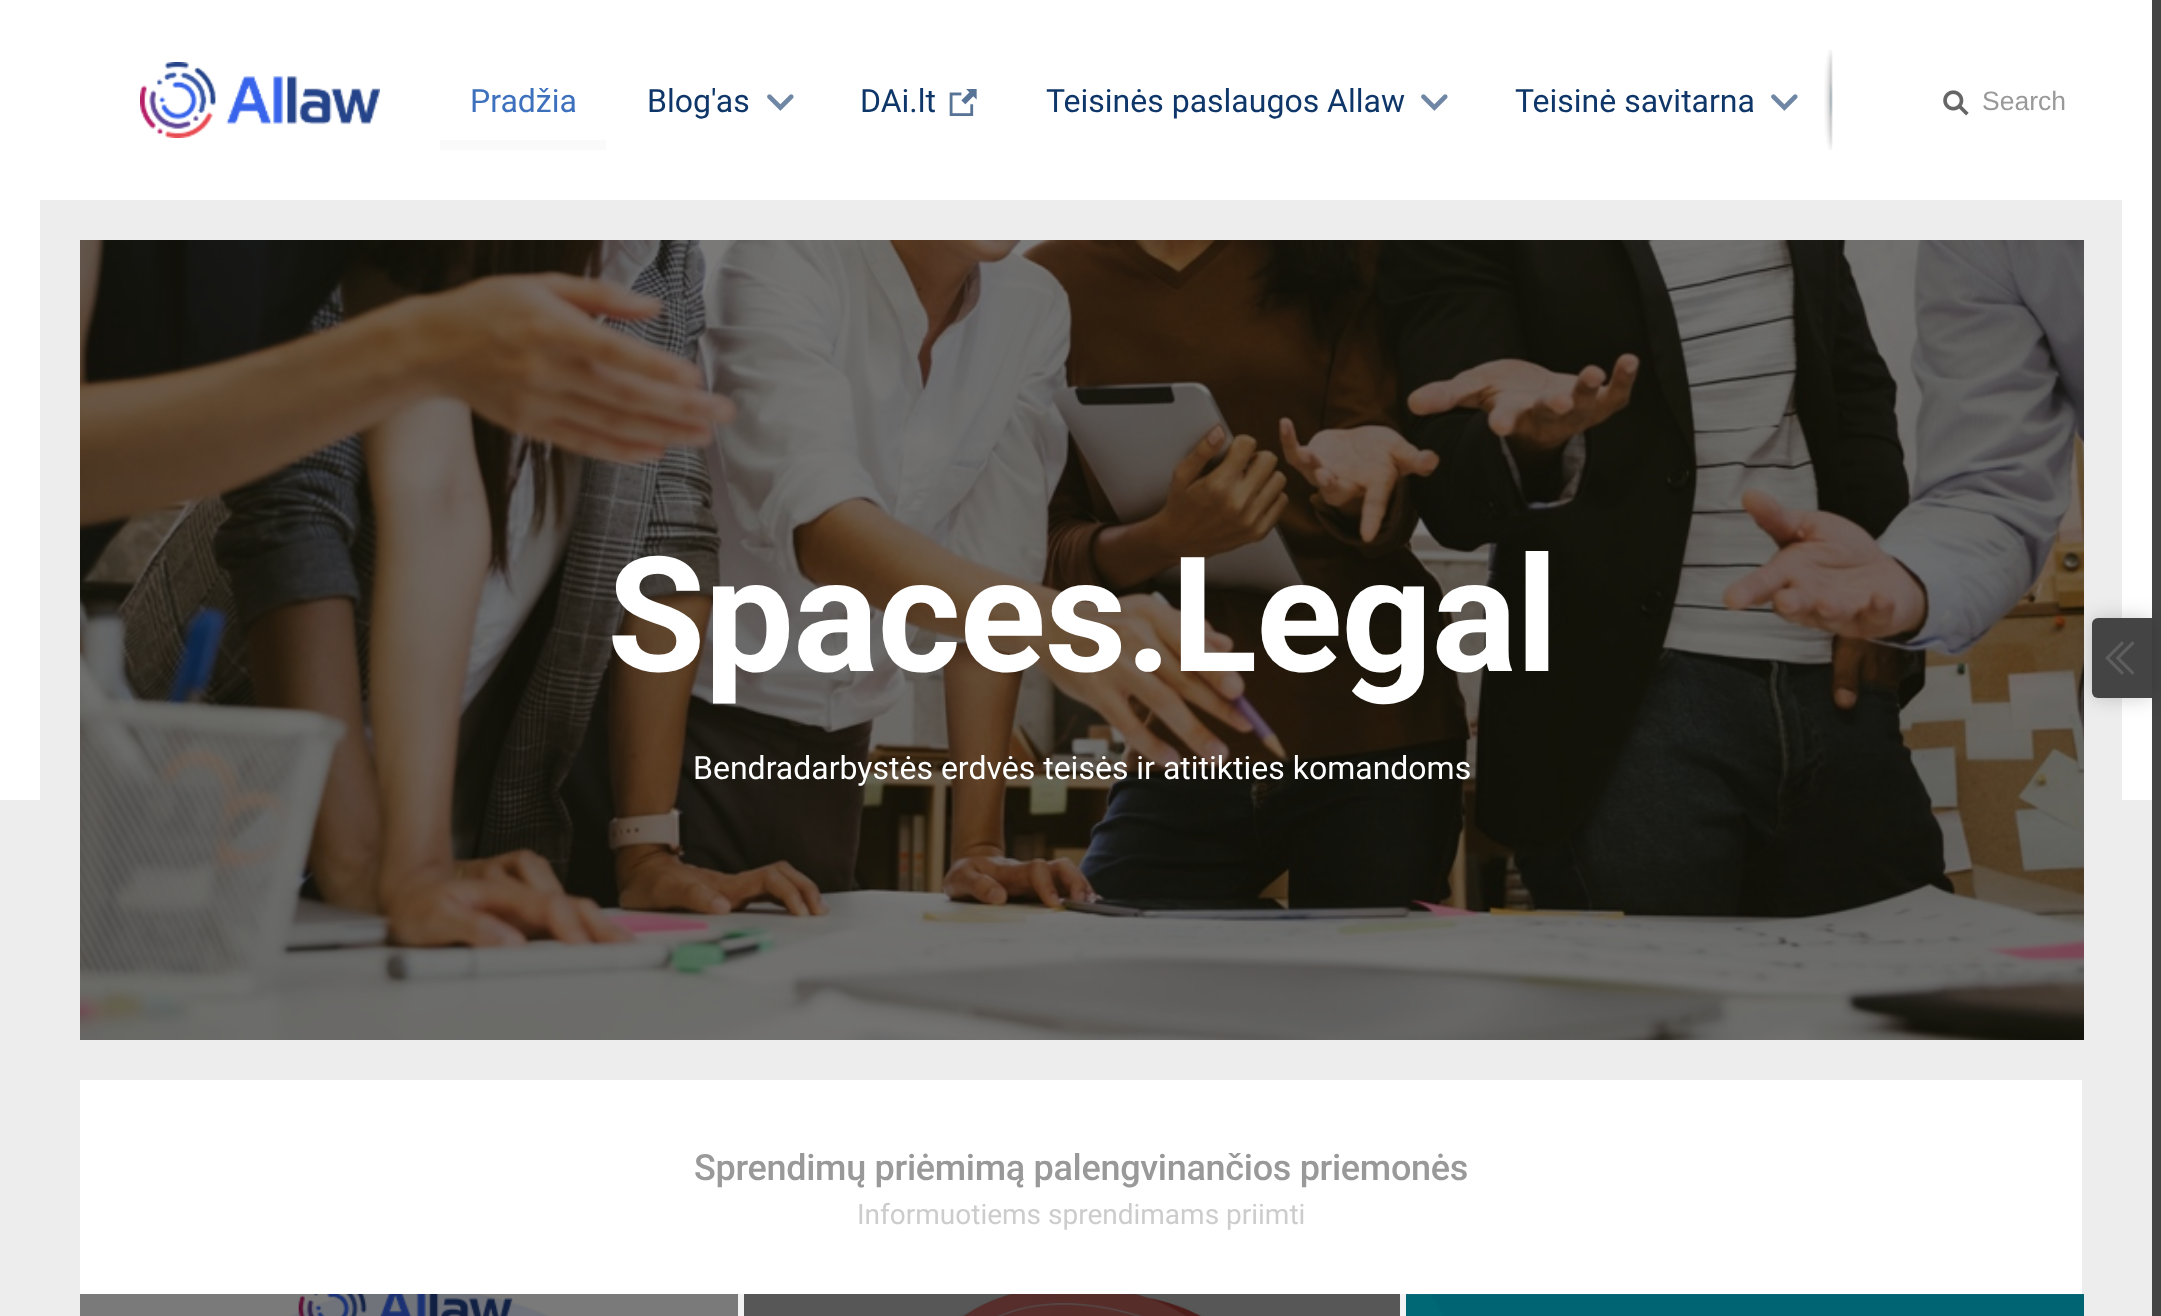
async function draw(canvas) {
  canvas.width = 2161;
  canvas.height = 1316;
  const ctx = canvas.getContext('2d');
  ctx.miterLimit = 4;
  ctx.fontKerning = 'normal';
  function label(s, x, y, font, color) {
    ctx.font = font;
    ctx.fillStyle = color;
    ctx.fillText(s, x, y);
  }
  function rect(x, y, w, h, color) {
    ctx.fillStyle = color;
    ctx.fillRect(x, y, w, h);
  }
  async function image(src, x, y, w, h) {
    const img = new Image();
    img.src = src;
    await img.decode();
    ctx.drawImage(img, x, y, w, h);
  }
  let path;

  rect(0, 0, 2161, 1316, '#ededed');
  rect(0, 0, 2152, 800, '#fff');
  await image('assets/img1.png', 140, 62, 240, 76);
  label('Pradžia', 470, 112, '32px Roboto', '#3d70bd');
  rect(440, 140, 166, 10, '#fafafa');
  label('Blog\'as', 647, 112, '32px Roboto', '#0f3669');
  await image('assets/img2.png', 767, 94, 27, 17);
  label('DAi.lt', 860, 112, '32px Roboto', '#0f3669');
  await image('assets/img3.png', 949, 89, 28, 27);
  label('Teisinės paslaugos Allaw', 1046, 112, '32px Roboto', '#0f3669');
  await image('assets/img2.png', 1421, 94, 27, 17);
  label('Teisinė savitarna', 1515, 112, '32px Roboto', '#0f3669');
  await image('assets/img2.png', 1771, 94, 27, 17);
  await image('assets/img4.png', 1824, 50, 9, 100);
  await image('assets/img5.png', 1943, 90, 26, 26);
  label('Search', 1982, 110, '26.5px Liberation Sans', '#999');
  rect(40, 200, 2082, 600, '#ededed');
  await image('assets/img6.png', 80, 240, 2004, 800);
  ctx.letterSpacing = '-1.25px';
  label('Spaces.Legal', 607, 671, 'bold 160px Roboto', '#fff');
  ctx.letterSpacing = '0px';
  label('Bendradarbystės erdvės teisės ir atitikties komandoms', 693, 779, '32px Roboto', '#fff');
  rect(80, 1080, 2002, 214, '#fff');
  ctx.letterSpacing = '-0.3px';
  label('Sprendimų priėmimą palengvinančios priemonės', 694, 1180, '500 36px Roboto', '#999');
  ctx.letterSpacing = '0px';
  label('Informuotiems sprendimams priimti', 857, 1224, '28px Roboto', '#ccc');
  await image('assets/img7.png', 80, 1294, 658, 22);
  rect(738, 1294, 6, 22, '#f2f2f2');
  await image('assets/img8.png', 744, 1294, 656, 22);
  rect(1400, 1294, 6, 22, '#f2f2f2');
  await image('assets/img9.png', 1406, 1294, 678, 22);
  rect(2152, 0, 9, 1316, '#444');
  ctx.fillStyle = '#00000033';
  ctx.filter = 'blur(10px)';
  ctx.beginPath();
  ctx.roundRect(2092, 618, 60, 80, 6);
  ctx.fill();
  ctx.filter = 'none';
  ctx.fillStyle = '#444';
  ctx.beginPath();
  ctx.roundRect(2092, 618, 60, 80, [6, 0, 0, 6]);
  ctx.fill();
  ctx.fillStyle = '#5e5e5e';
  path = new Path2D('M2122 641L2105 658L2122 675L2124 672.5L2109.5 658L2124 643.5ZM2132.5 641L2115.5 658L2132.5 675L2134.5 672.5L2120 658L2134.5 643.5Z');
  ctx.fill(path);
}

draw(document.querySelector('canvas'));
